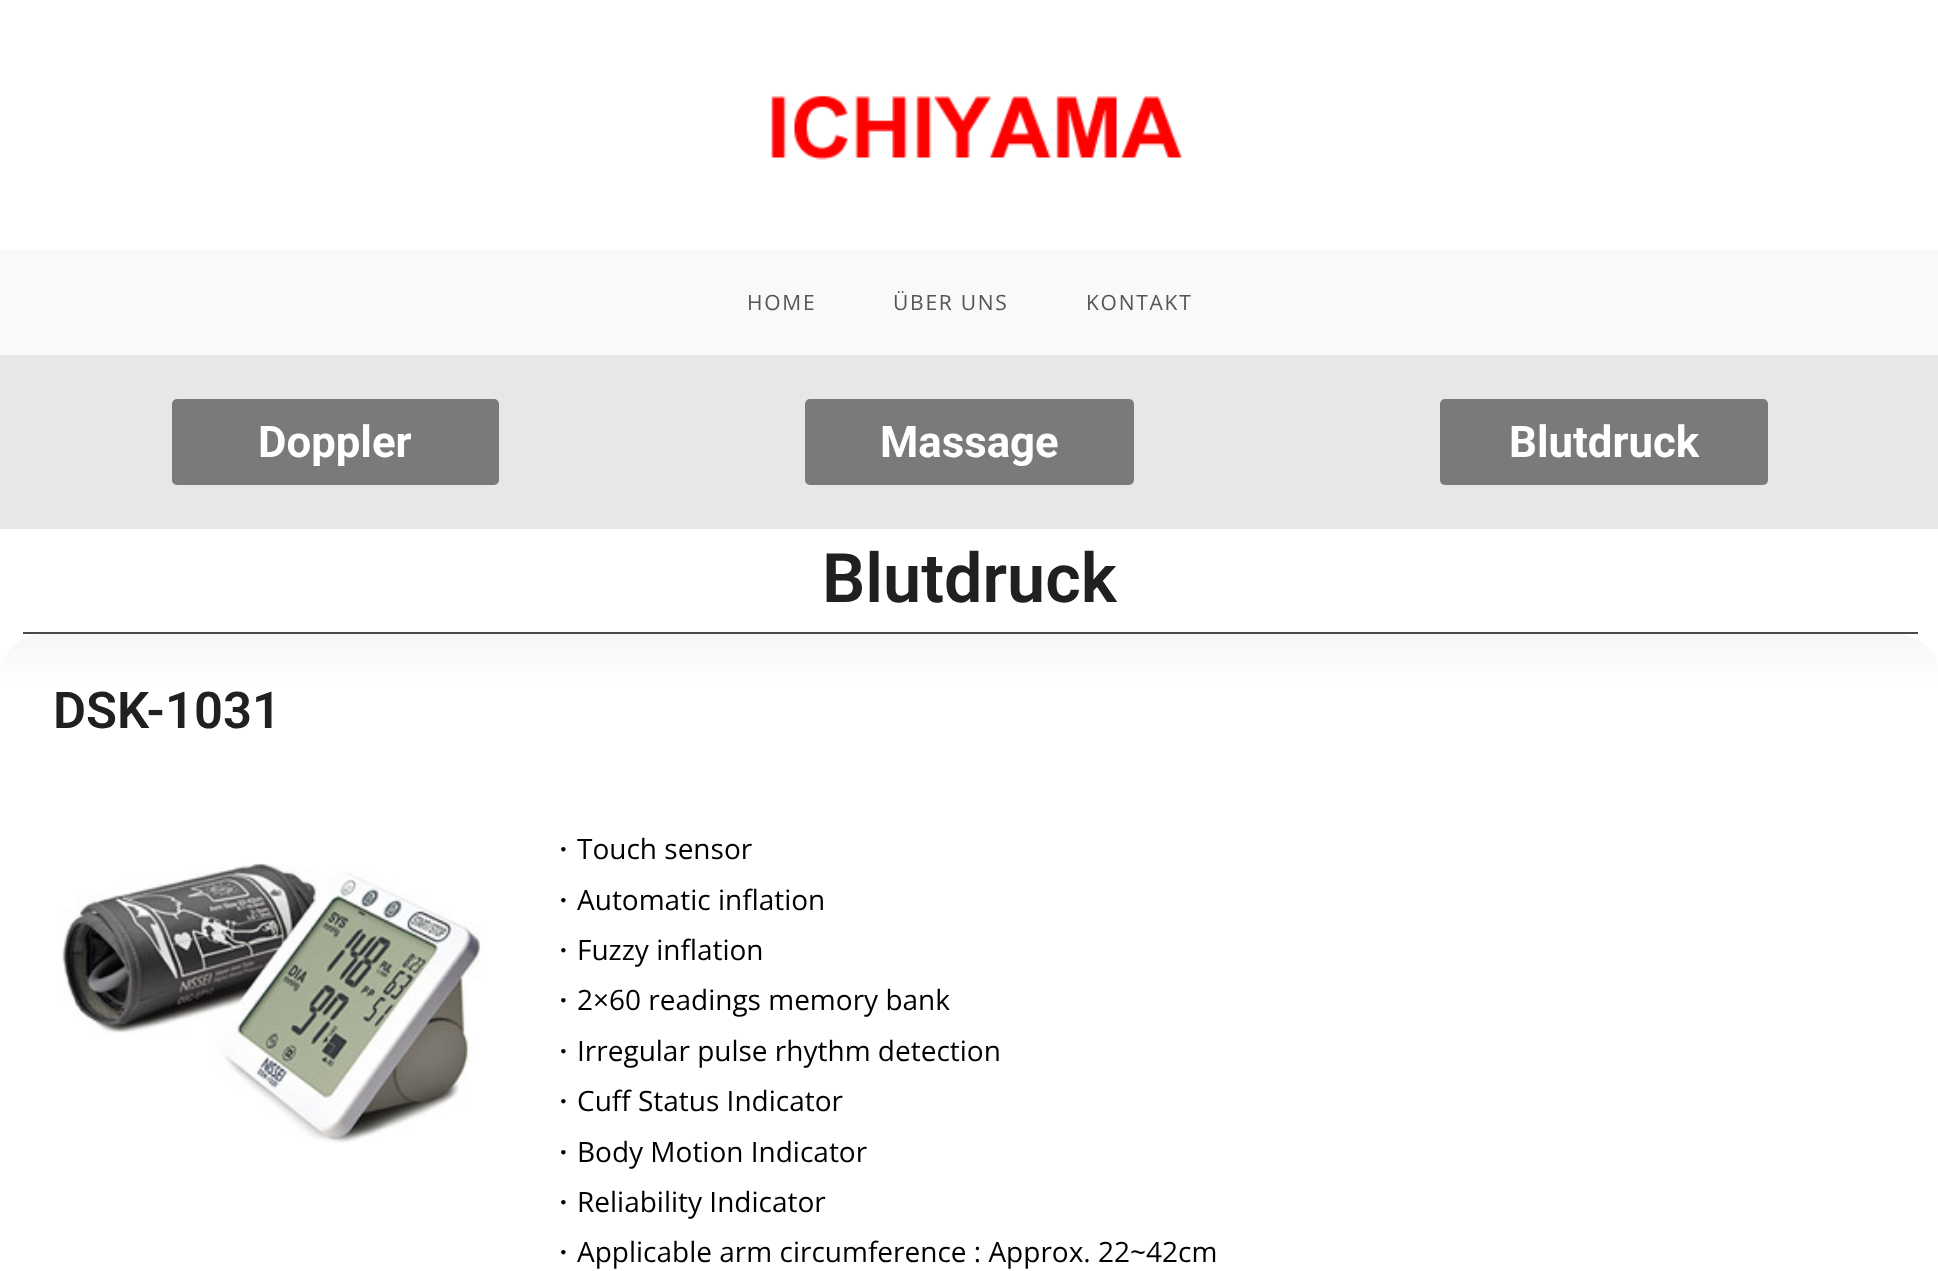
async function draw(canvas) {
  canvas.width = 1938;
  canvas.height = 1271;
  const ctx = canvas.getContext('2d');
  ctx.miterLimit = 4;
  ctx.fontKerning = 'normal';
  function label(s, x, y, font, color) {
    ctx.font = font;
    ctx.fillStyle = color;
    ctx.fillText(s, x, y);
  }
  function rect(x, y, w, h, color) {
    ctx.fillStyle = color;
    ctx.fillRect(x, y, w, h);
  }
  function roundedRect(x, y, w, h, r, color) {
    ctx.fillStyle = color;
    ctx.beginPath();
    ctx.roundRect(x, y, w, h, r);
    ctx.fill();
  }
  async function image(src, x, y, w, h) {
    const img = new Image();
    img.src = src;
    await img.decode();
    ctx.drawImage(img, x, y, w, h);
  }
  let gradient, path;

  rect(0, 0, 1938, 1271, '#fff');
  await image('assets/img1.png', 771, 95, 411, 65);
  rect(0, 250, 1938, 105, '#f9f9f9');
  ctx.letterSpacing = '1.75px';
  label('HOME', 747, 310, '21px Open Sans', '#555');
  label('ÜBER UNS', 893, 310, '21px Open Sans', '#555');
  label('KONTAKT', 1086, 310, '21px Open Sans', '#555');
  rect(0, 355, 1938, 174, '#e7e7e7');
  roundedRect(172, 399, 327, 86, 5, '#7a7a7a');
  ctx.letterSpacing = '0px';
  label('Doppler', 258, 457, 'bold 43.75px Roboto', '#fff');
  roundedRect(805, 399, 329, 86, 5, '#7a7a7a');
  label('Massage', 880, 457, 'bold 43.75px Roboto', '#fff');
  roundedRect(1440, 399, 328, 86, 5, '#7a7a7a');
  label('Blutdruck', 1509, 457, 'bold 43.75px Roboto', '#fff');
  label('Blutdruck', 822, 602, '600 68.25px Roboto', '#202020');
  gradient = ctx.createLinearGradient(970, 633, 970, 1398);
  gradient.addColorStop(0, '#f6f6f6');
  gradient.addColorStop(0.07, '#fff');
  ctx.fillStyle = gradient;
  path = new Path2D('M44 634H1895C1919 634 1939 652 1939 676V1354C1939 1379 1919 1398 1895 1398H44C20 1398 0 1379 0 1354V676C0 652 20 634 44 634Z');
  ctx.fill(path);
  rect(23, 632, 1895, 2, '#4a4a4a');
  label('DSK-1031', 53, 728, '600 50.75px Roboto', '#202020');
  await image('assets/img2.png', 62, 862, 420, 282);
  label('・', 549, 859, '500 28px WenQuanYi Zen Hei', '#000');
  label('Touch sensor', 577, 859, '28px Open Sans', '#000');
  label('・', 549, 910, '500 28px WenQuanYi Zen Hei', '#000');
  label('Automatic inflation', 577, 910, '28px Open Sans', '#000');
  label('・', 549, 960, '500 28px WenQuanYi Zen Hei', '#000');
  label('Fuzzy inflation', 577, 960, '28px Open Sans', '#000');
  label('・', 549, 1010, '500 28px WenQuanYi Zen Hei', '#000');
  label('2×60 readings memory bank', 577, 1010, '28px Open Sans', '#000');
  label('・', 549, 1061, '500 28px WenQuanYi Zen Hei', '#000');
  label('Irregular pulse rhythm detection', 577, 1061, '28px Open Sans', '#000');
  label('・', 549, 1111, '500 28px WenQuanYi Zen Hei', '#000');
  label('Cuff Status Indicator', 577, 1111, '28px Open Sans', '#000');
  label('・', 549, 1162, '500 28px WenQuanYi Zen Hei', '#000');
  label('Body Motion Indicator', 577, 1162, '28px Open Sans', '#000');
  label('・', 549, 1212, '500 28px WenQuanYi Zen Hei', '#000');
  label('Reliability Indicator', 577, 1212, '28px Open Sans', '#000');
  label('・', 549, 1262, '500 28px WenQuanYi Zen Hei', '#000');
  label('Applicable arm circumference : Approx. 22~42cm', 577, 1262, '28px Open Sans', '#000');
}

draw(document.querySelector('canvas'));
